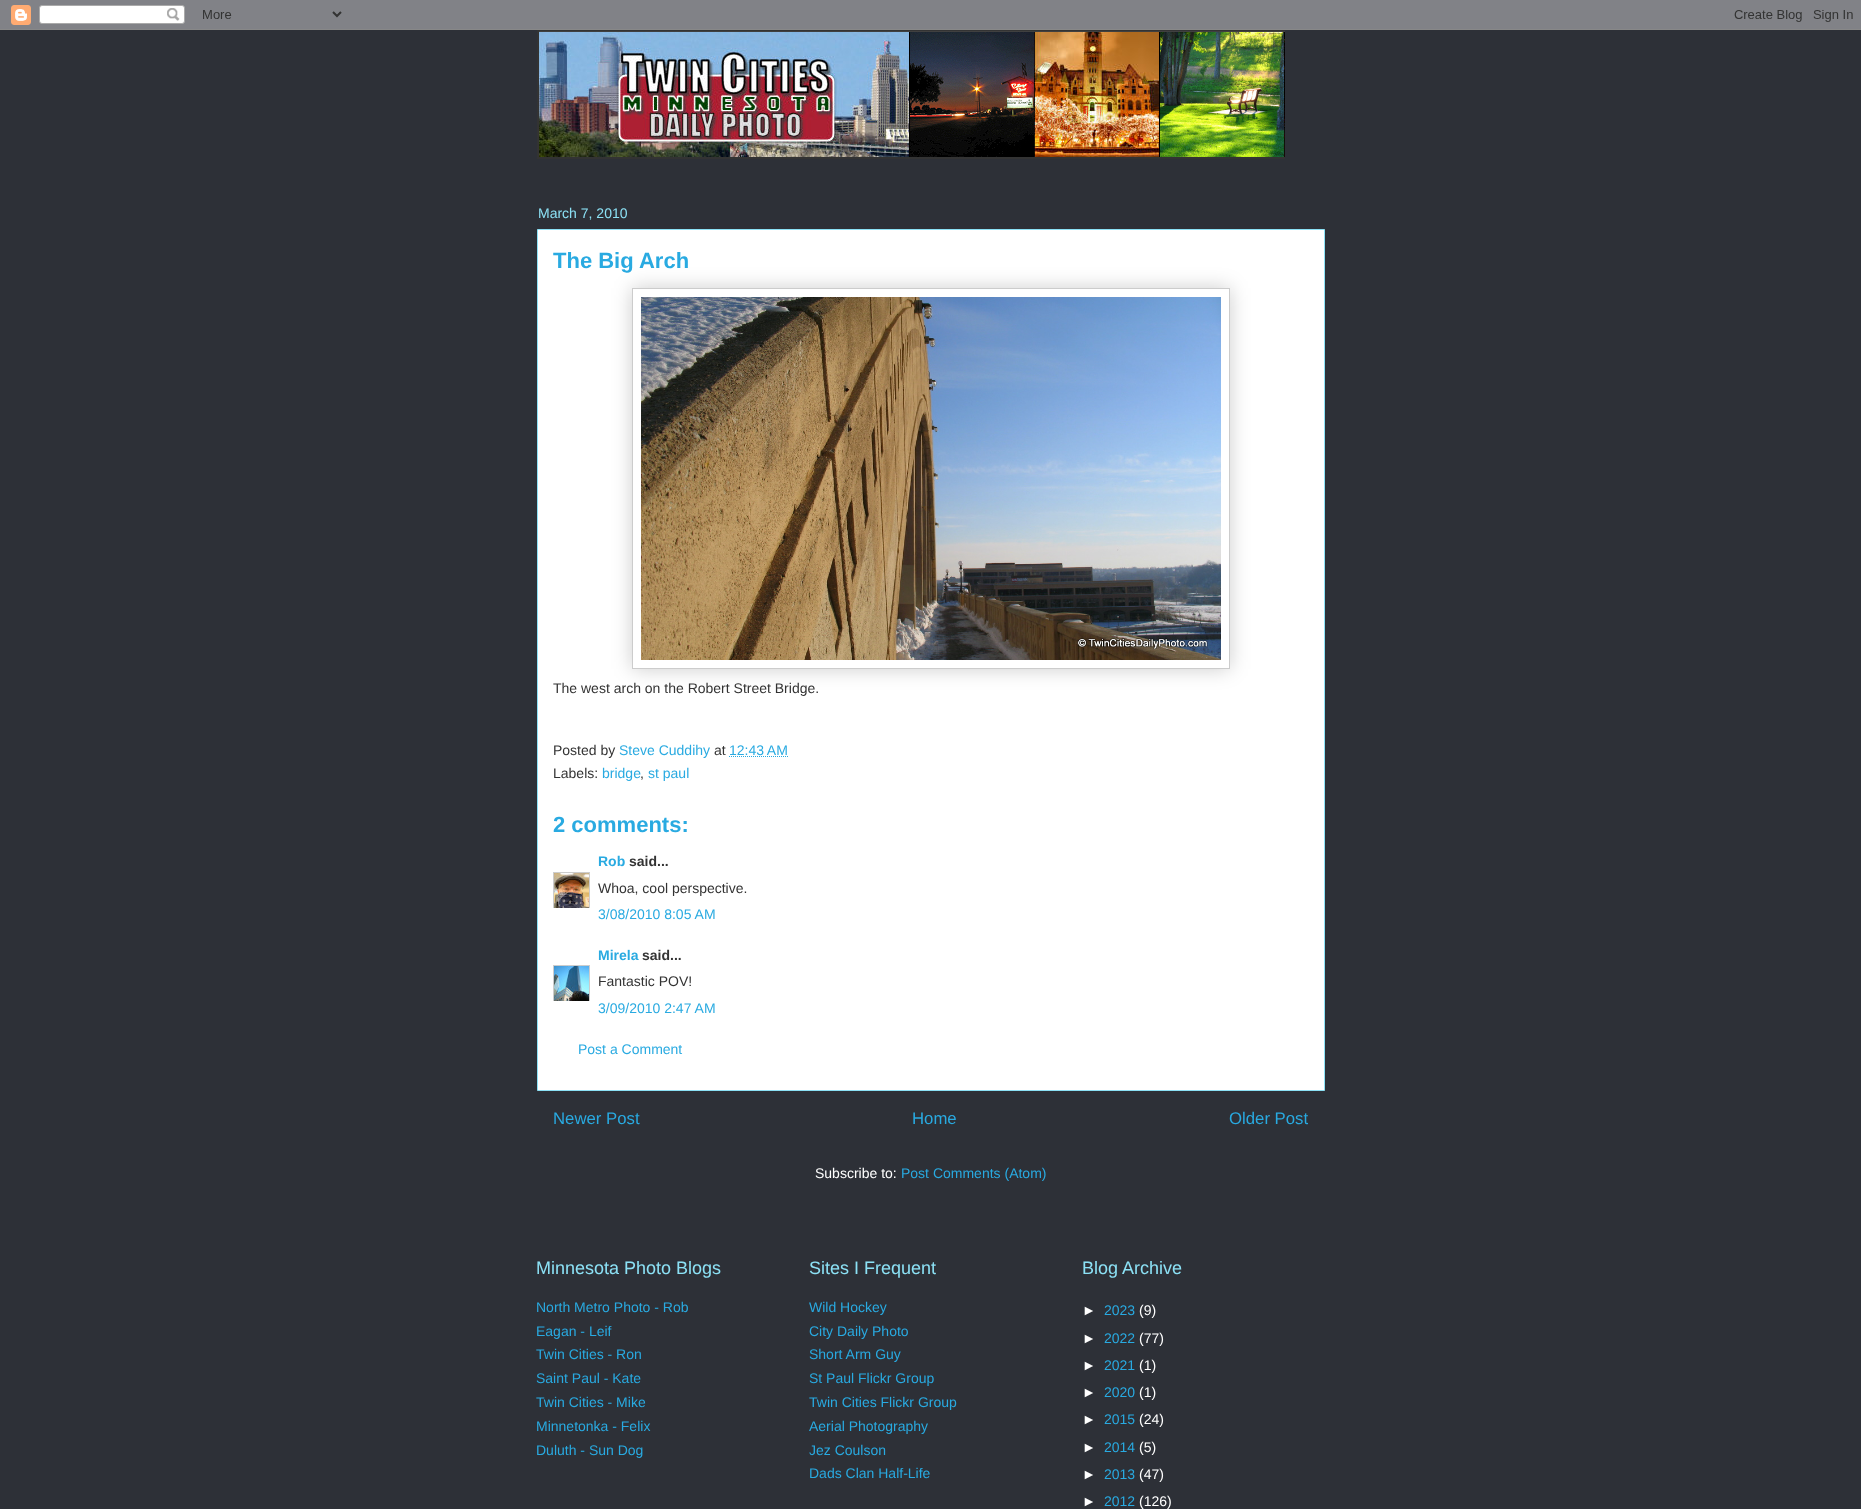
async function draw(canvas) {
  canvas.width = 1861;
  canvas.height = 1509;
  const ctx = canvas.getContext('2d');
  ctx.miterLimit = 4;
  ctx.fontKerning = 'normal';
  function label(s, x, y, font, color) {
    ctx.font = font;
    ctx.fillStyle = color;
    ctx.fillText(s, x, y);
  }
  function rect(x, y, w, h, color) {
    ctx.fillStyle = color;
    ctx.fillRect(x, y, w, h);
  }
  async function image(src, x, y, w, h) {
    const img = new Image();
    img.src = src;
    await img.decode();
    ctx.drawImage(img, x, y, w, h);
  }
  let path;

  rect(0, 0, 1861, 1509, '#2d3037');
  await image('assets/img1.png', 0, 0, 1861, 30);
  await image('assets/img2.png', 537, 30, 748, 129);
  ctx.fillStyle = '#fff';
  ctx.beginPath();
  ctx.rect(537.5, 229.5, 787, 861);
  ctx.fill();
  ctx.strokeStyle = '#8ce1f5';
  ctx.stroke();
  label('March 7, 2010', 538, 218, '14px Liberation Sans', '#8ce1f5');
  label('The Big Arch', 553, 268, 'bold 22px Liberation Sans', '#29aae1');
  ctx.save();
  path = new Path2D('M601 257H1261V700H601ZM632 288H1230V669H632Z');
  ctx.clip(path, 'evenodd');
  ctx.fillStyle = '#00000033';
  ctx.filter = 'blur(10px)';
  ctx.beginPath();
  ctx.rect(632, 288, 598, 381);
  ctx.fill();
  ctx.filter = 'none';
  ctx.restore();
  ctx.strokeStyle = '#ccc';
  ctx.strokeRect(632.5, 288.5, 597, 380);
  await image('assets/img3.png', 641, 297, 580, 363);
  label('The west arch on the Robert Street Bridge.', 553, 693, '14px Liberation Sans', '#333');
  label('Posted by', 553, 755, '14px Liberation Sans', '#333');
  label('Steve Cuddihy', 619, 755, '14px Liberation Sans', '#29aae1');
  label('at', 714, 755, '14px Liberation Sans', '#333');
  label('12:43 AM', 729, 755, '14px Liberation Sans', '#29aae1');
  path = new Path2D('M729 756.5H788');
  ctx.strokeStyle = '#29aae1';
  ctx.setLineDash([1, 1]);
  ctx.stroke(path);
  label('Labels:', 553, 778, '14px Liberation Sans', '#333');
  label('bridge', 602, 778, '14px Liberation Sans', '#29aae1');
  label(',', 640, 778, '14px Liberation Sans', '#333');
  label('st paul', 648, 778, '14px Liberation Sans', '#29aae1');
  label('2 comments:', 553, 832, 'bold 22px Liberation Sans', '#29aae1');
  label('Rob', 598, 866, 'bold 14px Liberation Sans', '#29aae1');
  label('said...', 629, 866, 'bold 14px Liberation Sans', '#333');
  ctx.save();
  ctx.beginPath();
  ctx.rect(553, 872, 37, 36);
  ctx.clip();
  ctx.strokeStyle = '#ccc';
  ctx.setLineDash([]);
  ctx.strokeRect(553.5, 872.5, 36, 36);
  ctx.restore();
  await image('assets/img4.png', 554, 873, 35, 35);
  label('Whoa, cool perspective.', 598, 893, '14px Liberation Sans', '#333');
  label('3/08/2010 8:05 AM', 598, 919, '14px Liberation Sans', '#29aae1');
  label('Mirela', 598, 960, 'bold 14px Liberation Sans', '#29aae1');
  label('said...', 642, 960, 'bold 14px Liberation Sans', '#333');
  ctx.save();
  ctx.beginPath();
  ctx.rect(553, 965, 37, 36);
  ctx.clip();
  ctx.strokeStyle = '#ccc';
  ctx.setLineDash([]);
  ctx.strokeRect(553.5, 965.5, 36, 36);
  ctx.restore();
  await image('assets/img5.png', 554, 966, 35, 35);
  label('Fantastic POV!', 598, 986, '14px Liberation Sans', '#333');
  label('3/09/2010 2:47 AM', 598, 1013, '14px Liberation Sans', '#29aae1');
  label('Post a Comment', 578, 1054, '14px Liberation Sans', '#29aae1');
  label('Newer Post', 553, 1124, '16.75px Liberation Sans', '#29aae1');
  label('Home', 912, 1124, '16.75px Liberation Sans', '#29aae1');
  label('Older Post', 1229, 1124, '16.75px Liberation Sans', '#29aae1');
  label('Subscribe to:', 815, 1178, '14px Liberation Sans', '#fff');
  label('Post Comments (Atom)', 901, 1178, '14px Liberation Sans', '#29aae1');
  label('Minnesota Photo Blogs', 536, 1274, '18px Liberation Sans', '#8ce1f5');
  label('North Metro Photo - Rob', 536, 1312, '14px Liberation Sans', '#29aae1');
  label('Eagan - Leif', 536, 1336, '14px Liberation Sans', '#29aae1');
  label('Twin Cities - Ron', 536, 1359, '14px Liberation Sans', '#29aae1');
  label('Saint Paul - Kate', 536, 1383, '14px Liberation Sans', '#29aae1');
  label('Twin Cities - Mike', 536, 1407, '14px Liberation Sans', '#29aae1');
  label('Minnetonka - Felix', 536, 1431, '14px Liberation Sans', '#29aae1');
  label('Duluth - Sun Dog', 536, 1455, '14px Liberation Sans', '#29aae1');
  label('Sites I Frequent', 809, 1274, '18px Liberation Sans', '#8ce1f5');
  label('Wild Hockey', 809, 1312, '14px Liberation Sans', '#29aae1');
  label('City Daily Photo', 809, 1336, '14px Liberation Sans', '#29aae1');
  label('Short Arm Guy', 809, 1359, '14px Liberation Sans', '#29aae1');
  label('St Paul Flickr Group', 809, 1383, '14px Liberation Sans', '#29aae1');
  label('Twin Cities Flickr Group', 809, 1407, '14px Liberation Sans', '#29aae1');
  label('Aerial Photography', 809, 1431, '14px Liberation Sans', '#29aae1');
  label('Jez Coulson', 809, 1455, '14px Liberation Sans', '#29aae1');
  label('Dads Clan Half-Life', 809, 1478, '14px Liberation Sans', '#29aae1');
  label('Blog Archive', 1082, 1274, '18px Liberation Sans', '#8ce1f5');
  label('►', 1082, 1315, '14px Liberation Sans', '#fff');
  label('2023', 1104, 1315, '14px Liberation Sans', '#29aae1');
  label('(9)', 1139, 1315, '14px Liberation Sans', '#fff');
  label('►', 1082, 1343, '14px Liberation Sans', '#fff');
  label('2022', 1104, 1343, '14px Liberation Sans', '#29aae1');
  label('(77)', 1139, 1343, '14px Liberation Sans', '#fff');
  label('►', 1082, 1370, '14px Liberation Sans', '#fff');
  label('2021', 1104, 1370, '14px Liberation Sans', '#29aae1');
  label('(1)', 1139, 1370, '14px Liberation Sans', '#fff');
  label('►', 1082, 1397, '14px Liberation Sans', '#fff');
  label('2020', 1104, 1397, '14px Liberation Sans', '#29aae1');
  label('(1)', 1139, 1397, '14px Liberation Sans', '#fff');
  label('►', 1082, 1424, '14px Liberation Sans', '#fff');
  label('2015', 1104, 1424, '14px Liberation Sans', '#29aae1');
  label('(24)', 1139, 1424, '14px Liberation Sans', '#fff');
  label('►', 1082, 1452, '14px Liberation Sans', '#fff');
  label('2014', 1104, 1452, '14px Liberation Sans', '#29aae1');
  label('(5)', 1139, 1452, '14px Liberation Sans', '#fff');
  label('►', 1082, 1479, '14px Liberation Sans', '#fff');
  label('2013', 1104, 1479, '14px Liberation Sans', '#29aae1');
  label('(47)', 1139, 1479, '14px Liberation Sans', '#fff');
  label('►', 1082, 1506, '14px Liberation Sans', '#fff');
  label('2012', 1104, 1506, '14px Liberation Sans', '#29aae1');
  label('(126)', 1139, 1506, '14px Liberation Sans', '#fff');
}

draw(document.querySelector('canvas'));
